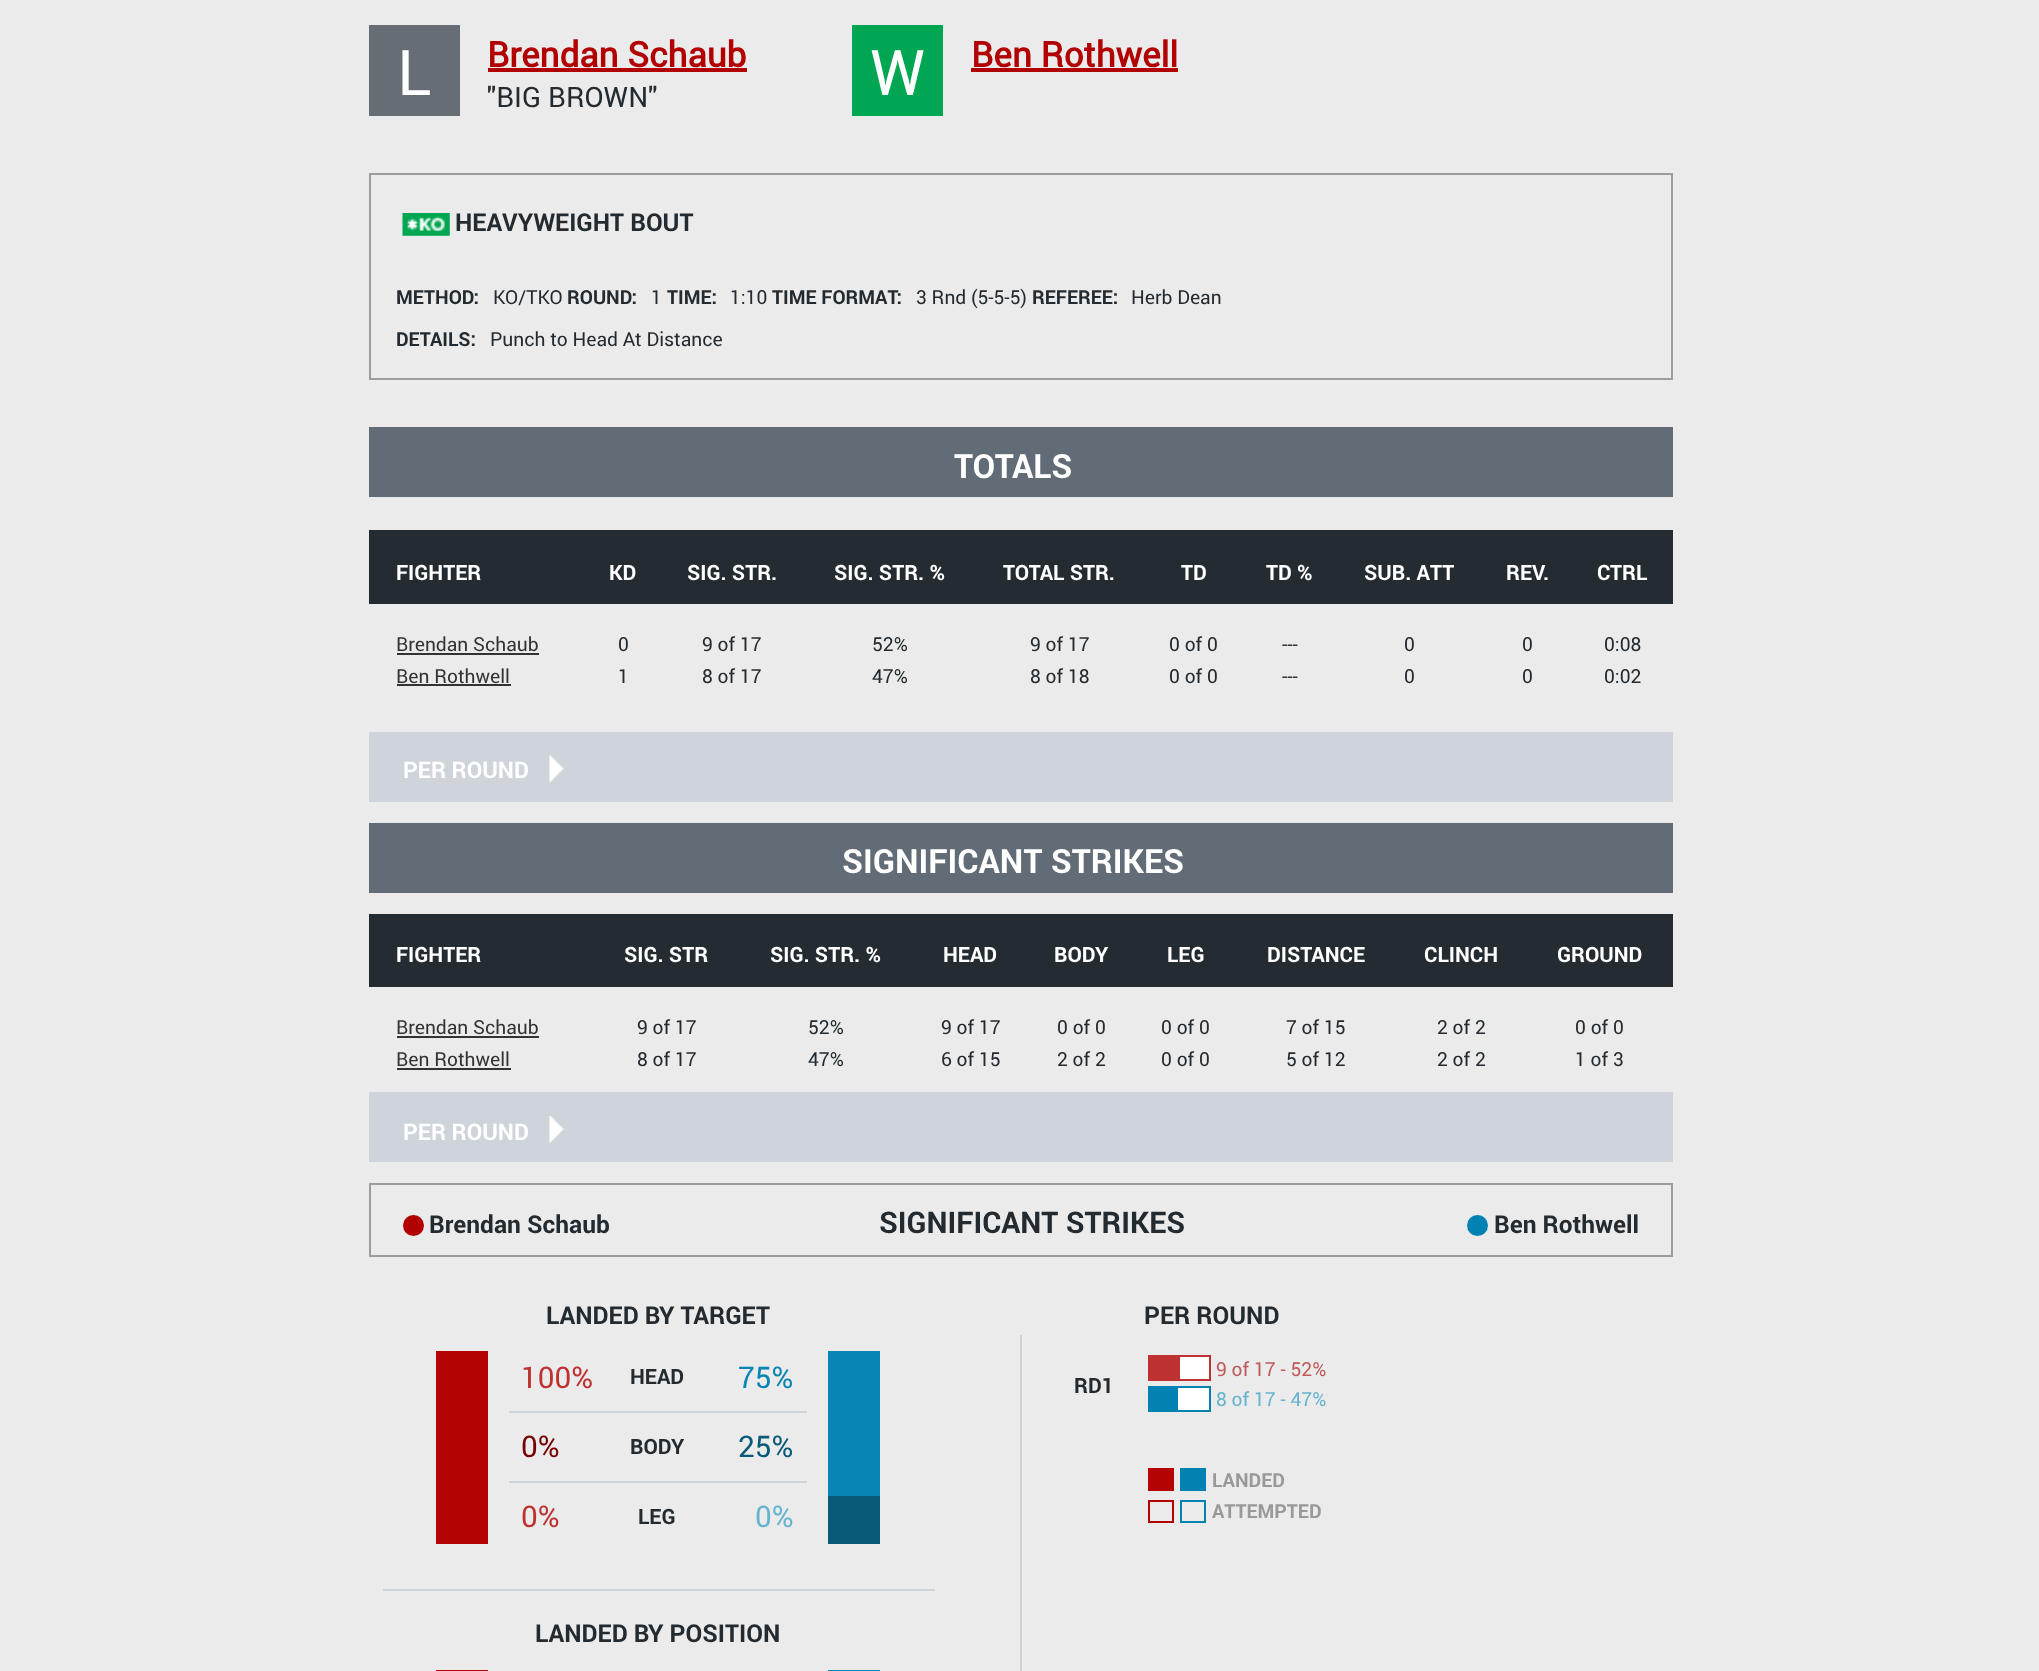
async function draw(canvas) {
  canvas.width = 2039;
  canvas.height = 1671;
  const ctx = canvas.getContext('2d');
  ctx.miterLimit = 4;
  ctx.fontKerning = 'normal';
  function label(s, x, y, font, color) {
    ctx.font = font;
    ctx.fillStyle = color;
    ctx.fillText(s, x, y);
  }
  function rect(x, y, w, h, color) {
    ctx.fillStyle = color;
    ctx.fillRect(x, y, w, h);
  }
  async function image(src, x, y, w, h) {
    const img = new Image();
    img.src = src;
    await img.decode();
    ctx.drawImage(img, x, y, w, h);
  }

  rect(0, 0, 2039, 1671, '#ebebeb');
  rect(369, 25, 91, 91, '#666d74');
  label('L', 397, 95, '63px Roboto', '#fff');
  label('Brendan Schaub', 487, 67, 'bold 35px Roboto', '#b10101');
  rect(488, 68, 259, 4, '#b10101');
  label('"BIG BROWN"', 487, 107, '28px Roboto', '#232b31');
  rect(852, 25, 91, 91, '#00a651');
  label('W', 870, 95, '63px Roboto', '#fff');
  label('Ben Rothwell', 971, 67, 'bold 35px Roboto', '#b10101');
  rect(971, 68, 207, 4, '#b10101');
  ctx.strokeStyle = '#9b9ea1';
  ctx.lineWidth = 2;
  ctx.strokeRect(370, 174, 1302, 205);
  await image('assets/img1.png', 402, 213, 48, 23);
  label('HEAVYWEIGHT BOUT', 455, 231, 'bold 24.5px "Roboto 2"', '#232b31');
  label('METHOD:', 396, 304, 'bold 19.25px "Roboto 2"', '#232b31');
  label('KO/TKO', 493, 304, '19.25px Roboto', '#232b31');
  label('ROUND:', 567, 304, 'bold 19.25px "Roboto 2"', '#232b31');
  label('1', 651, 304, '19.25px Roboto', '#232b31');
  label('TIME:', 667, 304, 'bold 19.25px "Roboto 2"', '#232b31');
  label('1:10', 730, 304, '19.25px Roboto', '#232b31');
  label('TIME FORMAT:', 772, 304, 'bold 19.25px "Roboto 2"', '#232b31');
  label('3 Rnd (5-5-5)', 916, 304, '19.25px Roboto', '#232b31');
  label('REFEREE:', 1032, 304, 'bold 19.25px "Roboto 2"', '#232b31');
  label('Herb Dean', 1131, 304, '19.25px Roboto', '#232b31');
  label('DETAILS:', 396, 346, 'bold 19.25px "Roboto 2"', '#232b31');
  label('Punch to Head At Distance', 490, 346, '19.25px Roboto', '#232b31');
  rect(369, 427, 1304, 70, '#626c76');
  label('TOTALS', 954, 478, 'bold 33.25px "Roboto 2"', '#fff');
  rect(369, 530, 1304, 74, '#242b31');
  label('FIGHTER', 396, 580, 'bold 21px "Roboto 2"', '#fff');
  label('KD', 609, 580, 'bold 21px "Roboto 2"', '#fff');
  label('SIG. STR.', 687, 580, 'bold 21px "Roboto 2"', '#fff');
  label('SIG. STR. %', 834, 580, 'bold 21px "Roboto 2"', '#fff');
  label('TOTAL STR.', 1003, 580, 'bold 21px "Roboto 2"', '#fff');
  label('TD', 1181, 580, 'bold 21px "Roboto 2"', '#fff');
  label('TD %', 1266, 580, 'bold 21px "Roboto 2"', '#fff');
  label('SUB. ATT', 1364, 580, 'bold 21px "Roboto 2"', '#fff');
  label('REV.', 1506, 580, 'bold 21px "Roboto 2"', '#fff');
  label('CTRL', 1597, 580, 'bold 21px "Roboto 2"', '#fff');
  label('Brendan Schaub', 396, 651, '19.25px Roboto', '#333');
  rect(397, 653, 142, 2, '#333');
  label('Ben Rothwell', 396, 683, '19.25px Roboto', '#333');
  rect(397, 684, 114, 2, '#333');
  label('0', 618, 651, '19.25px Roboto', '#232b31');
  label('1', 618, 683, '19.25px Roboto', '#232b31');
  label('9 of 17', 702, 651, '19.25px Roboto', '#232b31');
  label('8 of 17', 702, 683, '19.25px Roboto', '#232b31');
  label('52%', 872, 651, '19.25px Roboto', '#232b31');
  label('47%', 872, 683, '19.25px Roboto', '#232b31');
  label('9 of 17', 1030, 651, '19.25px Roboto', '#232b31');
  label('8 of 18', 1030, 683, '19.25px Roboto', '#232b31');
  label('0 of 0', 1169, 651, '19.25px Roboto', '#232b31');
  label('0 of 0', 1169, 683, '19.25px Roboto', '#232b31');
  label('---', 1282, 651, '19.25px Roboto', '#232b31');
  label('---', 1282, 683, '19.25px Roboto', '#232b31');
  label('0', 1404, 651, '19.25px Roboto', '#232b31');
  label('0', 1404, 683, '19.25px Roboto', '#232b31');
  label('0', 1522, 651, '19.25px Roboto', '#232b31');
  label('0', 1522, 683, '19.25px Roboto', '#232b31');
  label('0:08', 1604, 651, '19.25px Roboto', '#232b31');
  label('0:02', 1604, 683, '19.25px Roboto', '#232b31');
  rect(369, 732, 1304, 70, '#ced4da');
  label('PER ROUND', 403, 778, 'bold 22.75px "Roboto 2"', '#fff');
  await image('assets/img2.png', 549, 755, 15, 27);
  rect(369, 823, 1304, 70, '#626c76');
  label('SIGNIFICANT STRIKES', 842, 873, 'bold 33.25px "Roboto 2"', '#fff');
  rect(369, 914, 1304, 73, '#242b31');
  label('FIGHTER', 396, 962, 'bold 21px "Roboto 2"', '#fff');
  label('SIG. STR', 624, 962, 'bold 21px "Roboto 2"', '#fff');
  label('SIG. STR. %', 770, 962, 'bold 21px "Roboto 2"', '#fff');
  label('HEAD', 943, 962, 'bold 21px "Roboto 2"', '#fff');
  label('BODY', 1054, 962, 'bold 21px "Roboto 2"', '#fff');
  label('LEG', 1167, 962, 'bold 21px "Roboto 2"', '#fff');
  label('DISTANCE', 1267, 962, 'bold 21px "Roboto 2"', '#fff');
  label('CLINCH', 1424, 962, 'bold 21px "Roboto 2"', '#fff');
  label('GROUND', 1557, 962, 'bold 21px "Roboto 2"', '#fff');
  label('Brendan Schaub', 396, 1034, '19.25px Roboto', '#333');
  rect(397, 1036, 142, 2, '#333');
  label('Ben Rothwell', 396, 1066, '19.25px Roboto', '#333');
  rect(397, 1068, 114, 2, '#333');
  label('9 of 17', 637, 1034, '19.25px Roboto', '#232b31');
  label('8 of 17', 637, 1066, '19.25px Roboto', '#232b31');
  label('52%', 808, 1034, '19.25px Roboto', '#232b31');
  label('47%', 808, 1066, '19.25px Roboto', '#232b31');
  label('9 of 17', 941, 1034, '19.25px Roboto', '#232b31');
  label('6 of 15', 941, 1066, '19.25px Roboto', '#232b31');
  label('0 of 0', 1057, 1034, '19.25px Roboto', '#232b31');
  label('2 of 2', 1057, 1066, '19.25px Roboto', '#232b31');
  label('0 of 0', 1161, 1034, '19.25px Roboto', '#232b31');
  label('0 of 0', 1161, 1066, '19.25px Roboto', '#232b31');
  label('7 of 15', 1286, 1034, '19.25px Roboto', '#232b31');
  label('5 of 12', 1286, 1066, '19.25px Roboto', '#232b31');
  label('2 of 2', 1437, 1034, '19.25px Roboto', '#232b31');
  label('2 of 2', 1437, 1066, '19.25px Roboto', '#232b31');
  label('0 of 0', 1575, 1034, '19.25px Roboto', '#232b31');
  label('1 of 3', 1575, 1066, '19.25px Roboto', '#232b31');
  rect(369, 1092, 1304, 70, '#ced4da');
  label('PER ROUND', 403, 1140, 'bold 22.75px "Roboto 2"', '#fff');
  await image('assets/img3.png', 549, 1116, 15, 27);
  ctx.strokeRect(370, 1184, 1302, 72);
  ctx.fillStyle = '#b20101';
  ctx.beginPath();
  ctx.arc(413.5, 1225.5, 10.5, 0, 2 * Math.PI);
  ctx.fill();
  label('Brendan Schaub', 429, 1233, 'bold 24.5px "Roboto 2"', '#232b31');
  label('SIGNIFICANT STRIKES', 879, 1233, 'bold 29.75px "Roboto 2"', '#232b31');
  ctx.fillStyle = '#0182b2';
  ctx.beginPath();
  ctx.arc(1477.5, 1225.5, 10.5, 0, 2 * Math.PI);
  ctx.fill();
  label('Ben Rothwell', 1494, 1233, 'bold 24.5px "Roboto 2"', '#232b31');
  label('LANDED BY TARGET', 546, 1324, 'bold 24.5px "Roboto 2"', '#232b31');
  rect(436, 1351, 52, 193, '#b30303');
  label('100%', 521, 1388, '29.75px Roboto', '#be3131');
  label('HEAD', 630, 1384, 'bold 21px "Roboto 2"', '#232b31');
  label('75%', 738, 1388, '29.75px Roboto', '#0885b4');
  rect(509, 1411, 298, 2, '#ced4da');
  label('0%', 521, 1457, '29.75px Roboto', '#750202');
  label('BODY', 630, 1454, 'bold 21px "Roboto 2"', '#232b31');
  label('25%', 738, 1457, '29.75px Roboto', '#085a78');
  rect(509, 1481, 298, 2, '#ced4da');
  label('0%', 521, 1527, '29.75px Roboto', '#be3131');
  label('LEG', 638, 1524, 'bold 21px "Roboto 2"', '#232b31');
  label('0%', 755, 1527, '29.75px Roboto', '#66b4d0');
  rect(828, 1351, 52, 145, '#0885b4');
  rect(828, 1496, 52, 48, '#085a78');
  rect(383, 1589, 552, 2, '#ced4da');
  label('LANDED BY POSITION', 535, 1642, 'bold 24.5px "Roboto 2"', '#232b31');
  rect(436, 1670, 52, 1, '#b30303');
  rect(828, 1670, 52, 1, '#0885b4');
  rect(1020, 1335, 2, 336, '#ced4da');
  label('PER ROUND', 1144, 1324, 'bold 24.5px "Roboto 2"', '#232b31');
  label('RD1', 1074, 1393, 'bold 21px "Roboto 2"', '#232b31');
  rect(1180, 1357, 29, 22, '#fff');
  ctx.strokeStyle = '#be3131';
  ctx.strokeRect(1149, 1356, 61, 24);
  rect(1150, 1357, 30, 22, '#be3131');
  label('9 of 17 - 52%', 1216, 1376, '19.25px Roboto', '#bf5a5a');
  rect(1178, 1388, 31, 22, '#fff');
  ctx.strokeStyle = '#0182b2';
  ctx.strokeRect(1149, 1387, 61, 24);
  rect(1150, 1388, 28, 22, '#0182b2');
  label('8 of 17 - 47%', 1216, 1406, '19.25px Roboto', '#66b4d0');
  rect(1148, 1468, 26, 23, '#b30303');
  rect(1180, 1468, 26, 23, '#0182b2');
  label('LANDED', 1212, 1487, 'bold 19.25px "Roboto 2"', '#999');
  ctx.strokeStyle = '#b30303';
  ctx.strokeRect(1149, 1501, 24, 21);
  ctx.strokeStyle = '#0182b2';
  ctx.strokeRect(1181, 1501, 24, 21);
  label('ATTEMPTED', 1212, 1518, 'bold 19.25px "Roboto 2"', '#999');
}

draw(document.querySelector('canvas'));
